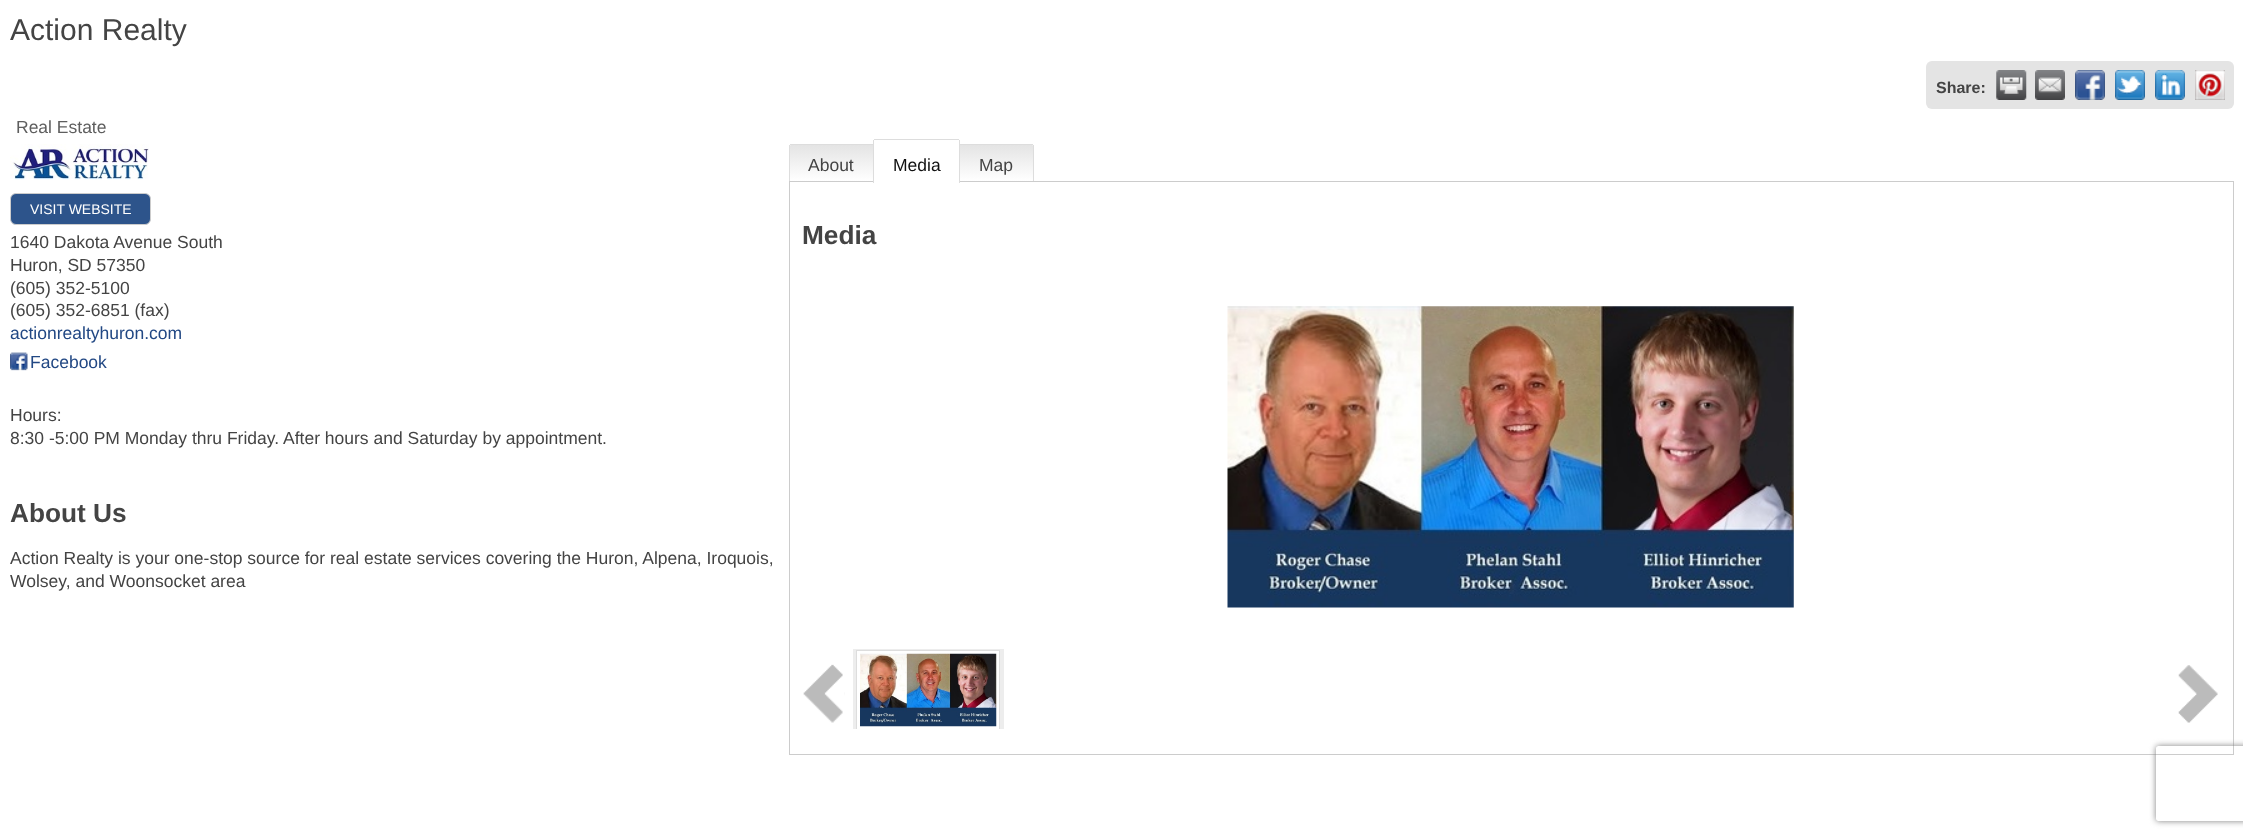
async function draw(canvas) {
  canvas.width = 2243;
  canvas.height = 838;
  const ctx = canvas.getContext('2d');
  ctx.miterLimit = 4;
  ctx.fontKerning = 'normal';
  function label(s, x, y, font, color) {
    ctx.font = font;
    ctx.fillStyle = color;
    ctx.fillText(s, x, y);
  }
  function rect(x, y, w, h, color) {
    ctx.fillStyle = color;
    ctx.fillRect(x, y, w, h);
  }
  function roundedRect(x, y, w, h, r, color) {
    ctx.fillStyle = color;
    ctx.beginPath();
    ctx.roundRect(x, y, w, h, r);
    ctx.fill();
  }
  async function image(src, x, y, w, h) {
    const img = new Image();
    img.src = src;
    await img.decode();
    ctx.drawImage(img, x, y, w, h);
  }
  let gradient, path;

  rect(0, 0, 2243, 838, '#fff');
  label('Action Realty', 10, 40, '30px Liberation Sans', '#444');
  roundedRect(1926, 61, 308, 48, 6, '#e4e4e4');
  label('Share:', 1936, 93, 'bold 16px Liberation Sans', '#444');
  await image('assets/img1.png', 1996, 70, 31, 30);
  await image('assets/img2.png', 2035, 70, 30, 30);
  await image('assets/img3.png', 2075, 70, 30, 30);
  await image('assets/img4.png', 2115, 70, 30, 30);
  await image('assets/img5.png', 2155, 70, 30, 30);
  await image('assets/img6.png', 2195, 70, 30, 30);
  label('Real Estate', 16, 133, '17.5px Liberation Sans', '#5e5e5e');
  await image('assets/img7.png', 10, 144, 139, 36);
  ctx.fillStyle = '#2d548b';
  ctx.beginPath();
  ctx.roundRect(10.5, 193.5, 140, 31, 5.5);
  ctx.fill();
  ctx.strokeStyle = '#ccc';
  ctx.stroke();
  label('VISIT WEBSITE', 30, 214, '14px Liberation Sans', '#fff');
  label('1640 Dakota Avenue South', 10, 248, '17.5px Liberation Sans', '#444');
  label('Huron, SD 57350', 10, 271, '17.5px Liberation Sans', '#444');
  label('(605) 352-5100', 10, 294, '17.5px Liberation Sans', '#444');
  label('(605) 352-6851 (fax)', 10, 316, '17.5px Liberation Sans', '#444');
  label('actionrealtyhuron.com', 10, 339, '17.5px Liberation Sans', '#224884');
  await image('assets/img8.png', 10, 352, 18, 19);
  label('Facebook', 30, 368, '17.5px Liberation Sans', '#224884');
  label('Hours:', 10, 421, '17.5px Liberation Sans', '#444');
  label('8:30 -5:00 PM Monday thru Friday.', 10, 444, '17.5px Liberation Sans', '#444');
  label('After hours and Saturday by appointment.', 283, 444, '17.5px Liberation Sans', '#444');
  label('About Us', 10, 522, 'bold 26.25px Liberation Sans', '#444');
  label('Action Realty is your one-stop source for real estate services covering the Huron, Alpena, Iroquois,', 10, 564, '17.5px Liberation Sans', '#444');
  label('Wolsey, and Woonsocket area', 10, 587, '17.5px Liberation Sans', '#444');
  gradient = ctx.createLinearGradient(831, 145, 831, 181);
  gradient.addColorStop(0, '#e4e4e4');
  gradient.addColorStop(1, '#fff');
  ctx.fillStyle = gradient;
  ctx.beginPath();
  ctx.roundRect(790, 145, 83, 36, [1, 0, 0, 0]);
  ctx.fill();
  rect(790, 144, 84, 1, '#ddd');
  rect(789, 145, 1, 36, '#ddd');
  label('About', 808, 171, '17.5px Liberation Sans', '#444');
  ctx.strokeRect(789.5, 181.5, 1444, 573);
  ctx.fillStyle = '#fff';
  ctx.beginPath();
  ctx.roundRect(874, 140, 85, 43, [1, 1, 0, 0]);
  ctx.fill();
  rect(874, 139, 85, 1, '#ddd');
  rect(959, 140, 1, 43, '#ddd');
  rect(873, 140, 1, 43, '#ddd');
  label('Media', 893, 171, '17.5px Liberation Sans', '#111');
  gradient = ctx.createLinearGradient(996, 145, 996, 181);
  gradient.addColorStop(0, '#e4e4e4');
  gradient.addColorStop(1, '#fff');
  ctx.fillStyle = gradient;
  ctx.beginPath();
  ctx.roundRect(960, 145, 73, 36, [0, 1, 0, 0]);
  ctx.fill();
  rect(960, 144, 73, 1, '#ddd');
  rect(1033, 145, 1, 36, '#ddd');
  label('Map', 979, 171, '17.5px Liberation Sans', '#444');
  label('Media', 802, 244, 'bold 26.25px Liberation Sans', '#444');
  await image('assets/img9.png', 1227, 306, 567, 302);
  await image('assets/img10.png', 803, 664, 42, 59);
  rect(853, 649, 151, 80, '#ededed');
  rect(857, 651, 142, 78, '#fff');
  ctx.save();
  ctx.beginPath();
  ctx.rect(853, 649, 151, 80);
  ctx.clip();
  ctx.strokeStyle = '#ddd';
  ctx.strokeRect(856.5, 650.5, 143, 79);
  ctx.restore();
  await image('assets/img11.png', 860, 653, 137, 74);
  await image('assets/img12.png', 2178, 665, 40, 58);
  ctx.save();
  path = new Path2D('M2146 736H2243V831H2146ZM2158.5 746H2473.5C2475 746 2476 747 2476 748.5V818.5C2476 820 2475 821 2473.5 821H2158.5C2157 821 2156 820 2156 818.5V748.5C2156 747 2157 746 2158.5 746Z');
  ctx.clip(path, 'evenodd');
  ctx.fillStyle = '#808080';
  ctx.filter = 'blur(3px)';
  ctx.beginPath();
  ctx.roundRect(2156, 746, 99, 75, 2.5);
  ctx.fill();
  ctx.filter = 'none';
  ctx.restore();
}

draw(document.querySelector('canvas'));
